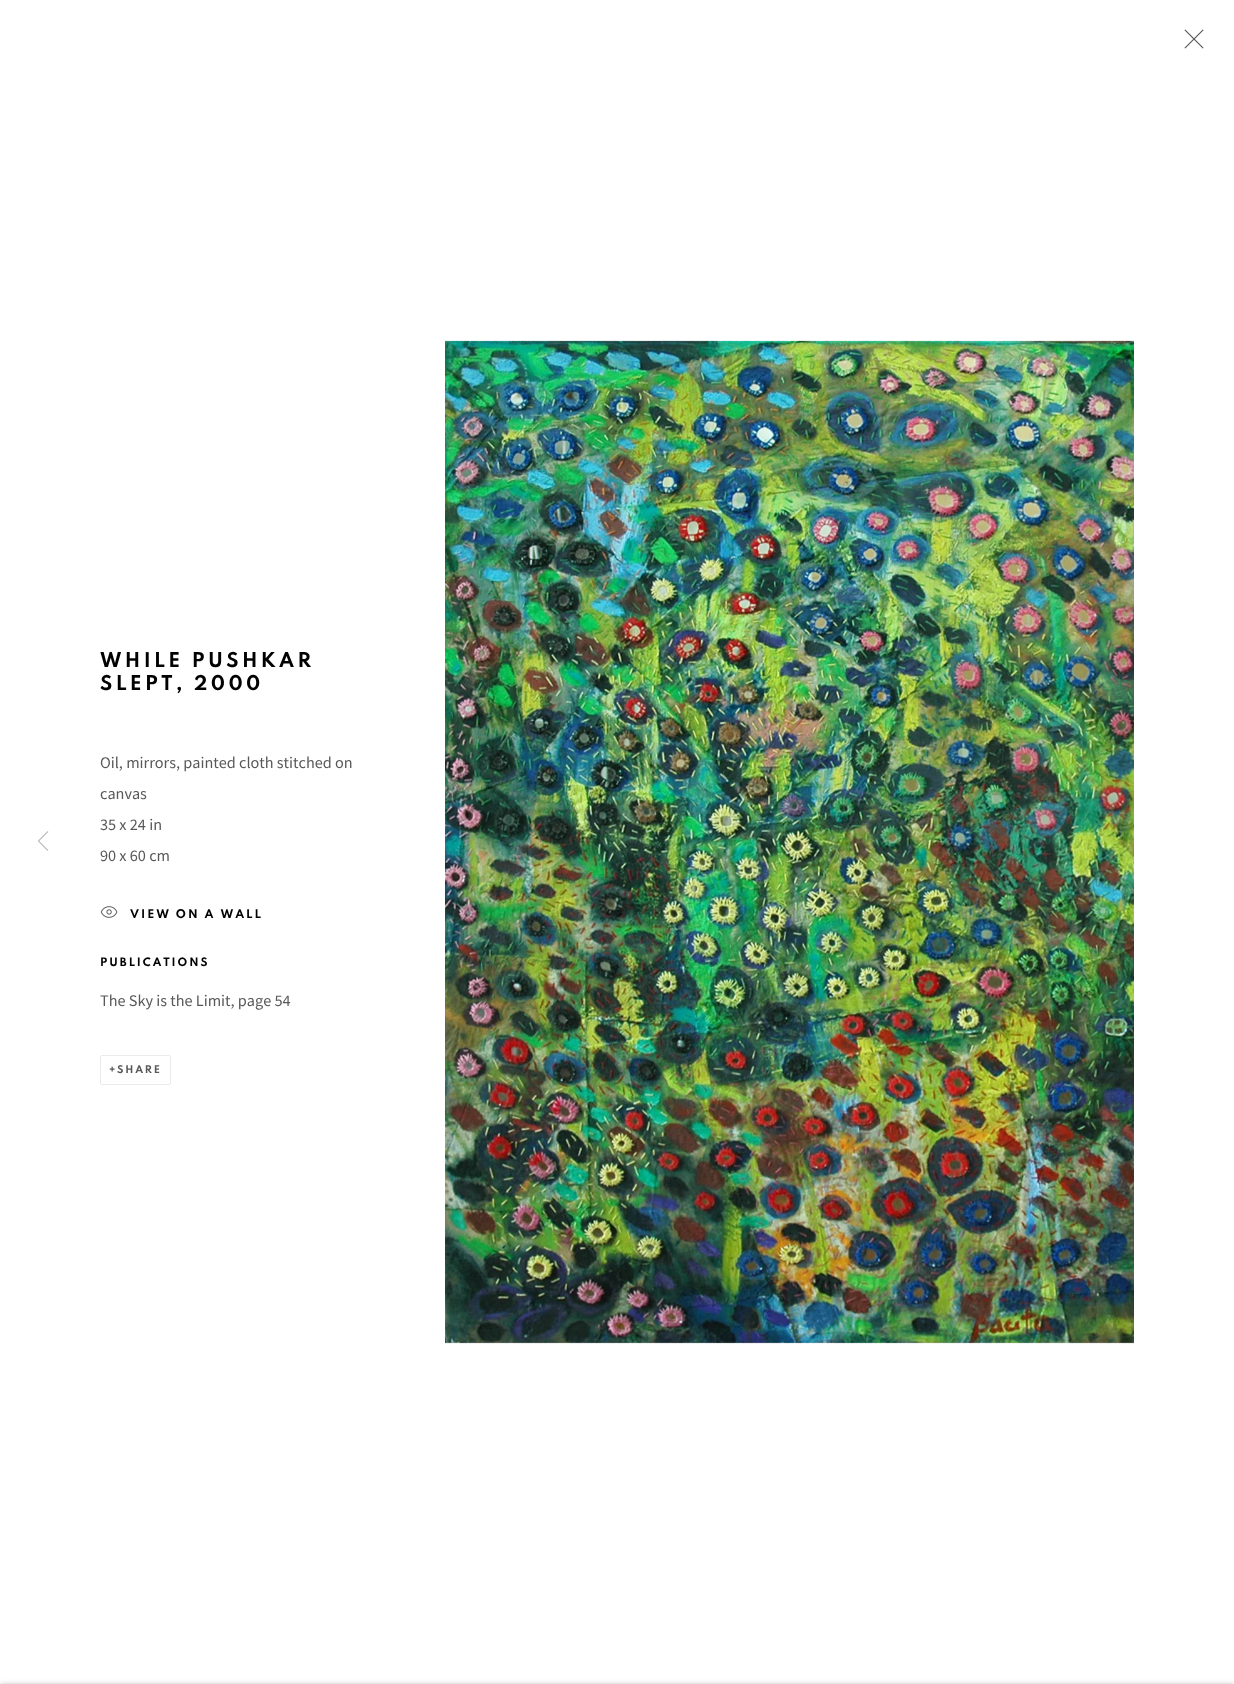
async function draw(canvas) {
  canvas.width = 1234;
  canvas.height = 1684;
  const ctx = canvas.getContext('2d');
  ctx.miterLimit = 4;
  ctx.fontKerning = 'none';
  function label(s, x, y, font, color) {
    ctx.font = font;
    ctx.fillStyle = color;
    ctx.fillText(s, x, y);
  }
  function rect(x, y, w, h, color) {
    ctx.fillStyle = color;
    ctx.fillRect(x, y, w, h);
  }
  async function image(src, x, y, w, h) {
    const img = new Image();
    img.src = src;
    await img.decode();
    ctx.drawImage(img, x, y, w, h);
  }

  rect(0, 0, 1234, 1684, '#fff');
  await image('assets/img1.png', 1184, 29, 20, 20);
  await image('assets/img2.png', 38, 831, 11, 20);
  ctx.letterSpacing = '3.4px';
  label('WHILE PUSHKAR', 100, 667, 'bold 21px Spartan', '#010101');
  label('SLEPT, 2000', 100, 690, 'bold 21px Spartan', '#010101');
  ctx.letterSpacing = '0px';
  label('Oil, mirrors, painted cloth stitched on', 100, 768, '14.5px Noto Sans KR', '#585858');
  label('canvas', 100, 799, '14.5px Noto Sans KR', '#585858');
  label('35 x 24 in', 100, 830, '14.5px Noto Sans KR', '#585858');
  label('90 x 60 cm', 100, 861, '14.5px Noto Sans KR', '#585858');
  await image('assets/img3.png', 100, 906, 18, 12);
  ctx.letterSpacing = '2px';
  label('VIEW ON A WALL', 130, 918, 'bold 12.5px Spartan', '#010101');
  label('PUBLICATIONS', 100, 966, 'bold 12px Spartan', '#010101');
  ctx.letterSpacing = '0px';
  label('The Sky is the Limit, page 54', 100, 1006, '14.5px Noto Sans KR', '#585858');
  ctx.beginPath();
  ctx.roundRect(100.5, 1055.5, 70, 29, 1.5);
  ctx.strokeStyle = '#ebebeb';
  ctx.stroke();
  ctx.letterSpacing = '1.75px';
  label('+SHARE', 109, 1073, 'bold 11px Spartan', '#585858');
  await image('assets/img4.png', 445, 340, 689, 1004);
  ctx.fillStyle = '#0000003b';
  ctx.filter = 'blur(2.5px)';
  ctx.beginPath();
  ctx.rect(0, 1684, 1234, 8);
  ctx.fill();
  ctx.filter = 'none';
}

draw(document.querySelector('canvas'));
